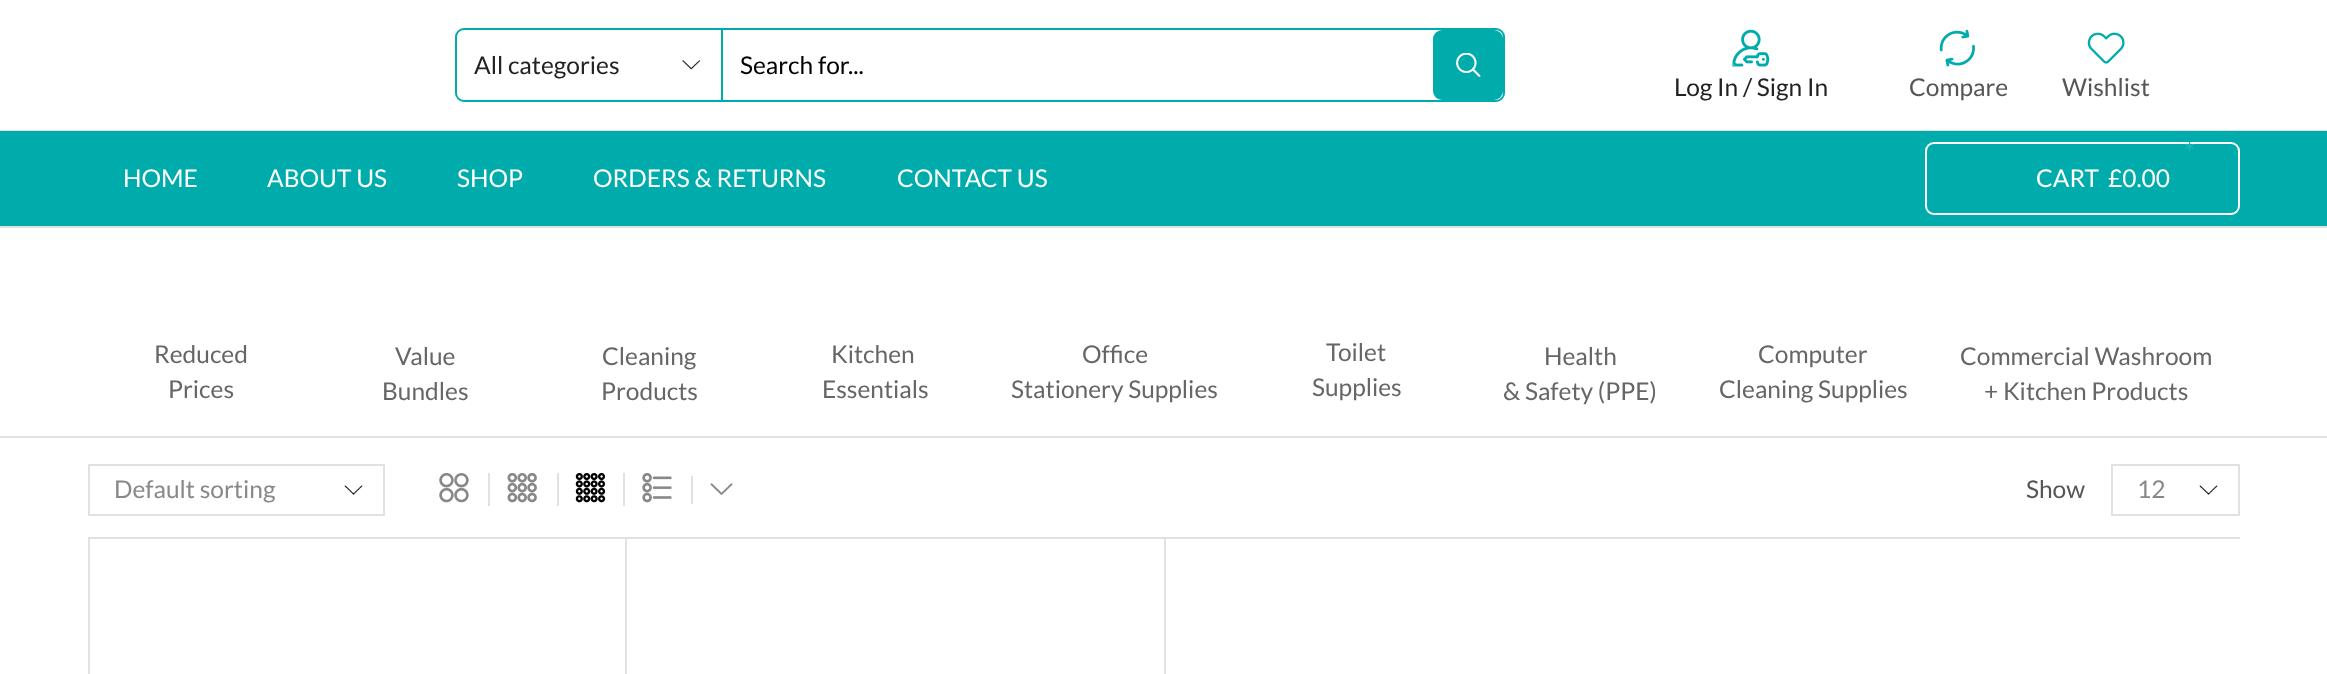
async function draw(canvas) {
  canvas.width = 2327;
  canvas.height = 674;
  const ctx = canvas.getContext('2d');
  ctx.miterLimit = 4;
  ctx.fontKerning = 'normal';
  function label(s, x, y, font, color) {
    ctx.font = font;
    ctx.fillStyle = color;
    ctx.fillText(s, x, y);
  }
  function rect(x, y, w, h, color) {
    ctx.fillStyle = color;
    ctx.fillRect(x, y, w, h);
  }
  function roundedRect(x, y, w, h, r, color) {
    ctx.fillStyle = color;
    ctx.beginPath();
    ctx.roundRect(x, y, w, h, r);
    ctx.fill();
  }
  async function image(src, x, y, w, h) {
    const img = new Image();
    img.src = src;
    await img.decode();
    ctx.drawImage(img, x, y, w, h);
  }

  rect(0, 0, 2327, 674, '#fff');
  rect(0, 130, 2327, 1, '#e1e1e1');
  ctx.beginPath();
  ctx.roundRect(456, 29, 1048, 72, 8);
  ctx.strokeStyle = '#00acab';
  ctx.lineWidth = 2;
  ctx.stroke();
  await image('assets/img1.png', 682, 60, 18, 10);
  rect(721, 30, 2, 70, '#00acab');
  label('All categories', 474, 74, '24.5px Lato', '#222');
  label('Search for...', 740, 74, '24.5px Lato', '#000');
  roundedRect(1433, 30, 70, 70, 9, '#00acab');
  await image('assets/img2.png', 1456, 53, 25, 24);
  await image('assets/img3.png', 1732, 29, 38, 38);
  label('Log In / Sign In', 1674, 96, '24.5px Lato', '#222');
  rect(0, 131, 2327, 95, '#00acab');
  ctx.beginPath();
  ctx.roundRect(1926, 143, 313, 71, 8);
  ctx.strokeStyle = '#fff';
  ctx.stroke();
  label('*', 2184, 163, '28px Lato', '#1eb6b5');
  await image('assets/img4.png', 1939, 29, 36, 38);
  label('Compare', 1909, 96, '24.5px Lato', '#555');
  await image('assets/img5.png', 2087, 32, 38, 32);
  label('Wishlist', 2062, 96, '24.5px Lato', '#555');
  rect(0, 226, 2327, 2, '#e1e1e1');
  label('HOME', 123, 187, '24.5px Lato', '#fff');
  label('ABOUT US', 267, 187, '24.5px Lato', '#fff');
  label('SHOP', 457, 187, '24.5px Lato', '#fff');
  label('ORDERS & RETURNS', 593, 187, '24.5px Lato', '#fff');
  label('CONTACT US', 897, 187, '24.5px Lato', '#fff');
  label('CART', 2036, 187, '24.5px Lato', '#fff');
  label('£0.00', 2108, 187, '24.5px Lato', '#fff');
  rect(0, 436, 2327, 2, '#e1e1e1');
  label('Reduced', 154, 363, '24.5px Lato', '#666');
  label('Prices', 168, 398, '24.5px Lato', '#666');
  label('Value', 395, 365, '24.5px Lato', '#666');
  label('Bundles', 382, 400, '24.5px Lato', '#666');
  label('Cleaning', 602, 365, '24.5px Lato', '#666');
  label('Products', 601, 400, '24.5px Lato', '#666');
  label('Kitchen', 831, 363, '24.5px Lato', '#666');
  label('Essentials', 822, 398, '24.5px Lato', '#666');
  label('Office', 1082, 363, '24.5px Lato', '#666');
  label('Stationery Supplies', 1011, 398, '24.5px Lato', '#666');
  label('Toilet', 1326, 361, '24.5px Lato', '#666');
  label('Supplies', 1312, 396, '24.5px Lato', '#666');
  label('Health', 1544, 365, '24.5px Lato', '#666');
  label('& Safety (PPE)', 1503, 400, '24.5px Lato', '#666');
  label('Computer', 1758, 363, '24.5px Lato', '#666');
  label('Cleaning Supplies', 1719, 398, '24.5px Lato', '#666');
  label('Commercial Washroom', 1960, 365, '24.5px Lato', '#666');
  label('+ Kitchen Products', 1984, 400, '24.5px Lato', '#666');
  await image('assets/img6.png', 344, 485, 19, 10);
  ctx.strokeStyle = '#e1e1e1';
  ctx.strokeRect(89, 465, 295, 50);
  label('Default sorting', 114, 498, '24.5px Lato', '#888');
  await image('assets/img7.png', 439, 472, 30, 31);
  rect(488, 473, 2, 33, '#e1e1e1');
  await image('assets/img8.png', 507, 472, 30, 31);
  rect(557, 473, 2, 33, '#e1e1e1');
  await image('assets/img9.png', 575, 473, 31, 30);
  rect(623, 473, 2, 33, '#e1e1e1');
  await image('assets/img10.png', 642, 473, 30, 30);
  rect(691, 476, 2, 28, '#e1e1e1');
  await image('assets/img11.png', 710, 483, 23, 12);
  label('Show', 2026, 498, '24.5px Lato', '#555');
  await image('assets/img12.png', 2199, 485, 19, 10);
  ctx.strokeRect(2112, 465, 127, 50);
  label('12', 2137, 498, '24.5px Lato', '#888');
  rect(88, 537, 2152, 2, '#e1e1e1');
  rect(88, 537, 2, 137, '#e1e1e1');
  rect(625, 539, 2, 135, '#e1e1e1');
  rect(1164, 539, 2, 135, '#e1e1e1');
}

draw(document.querySelector('canvas'));
